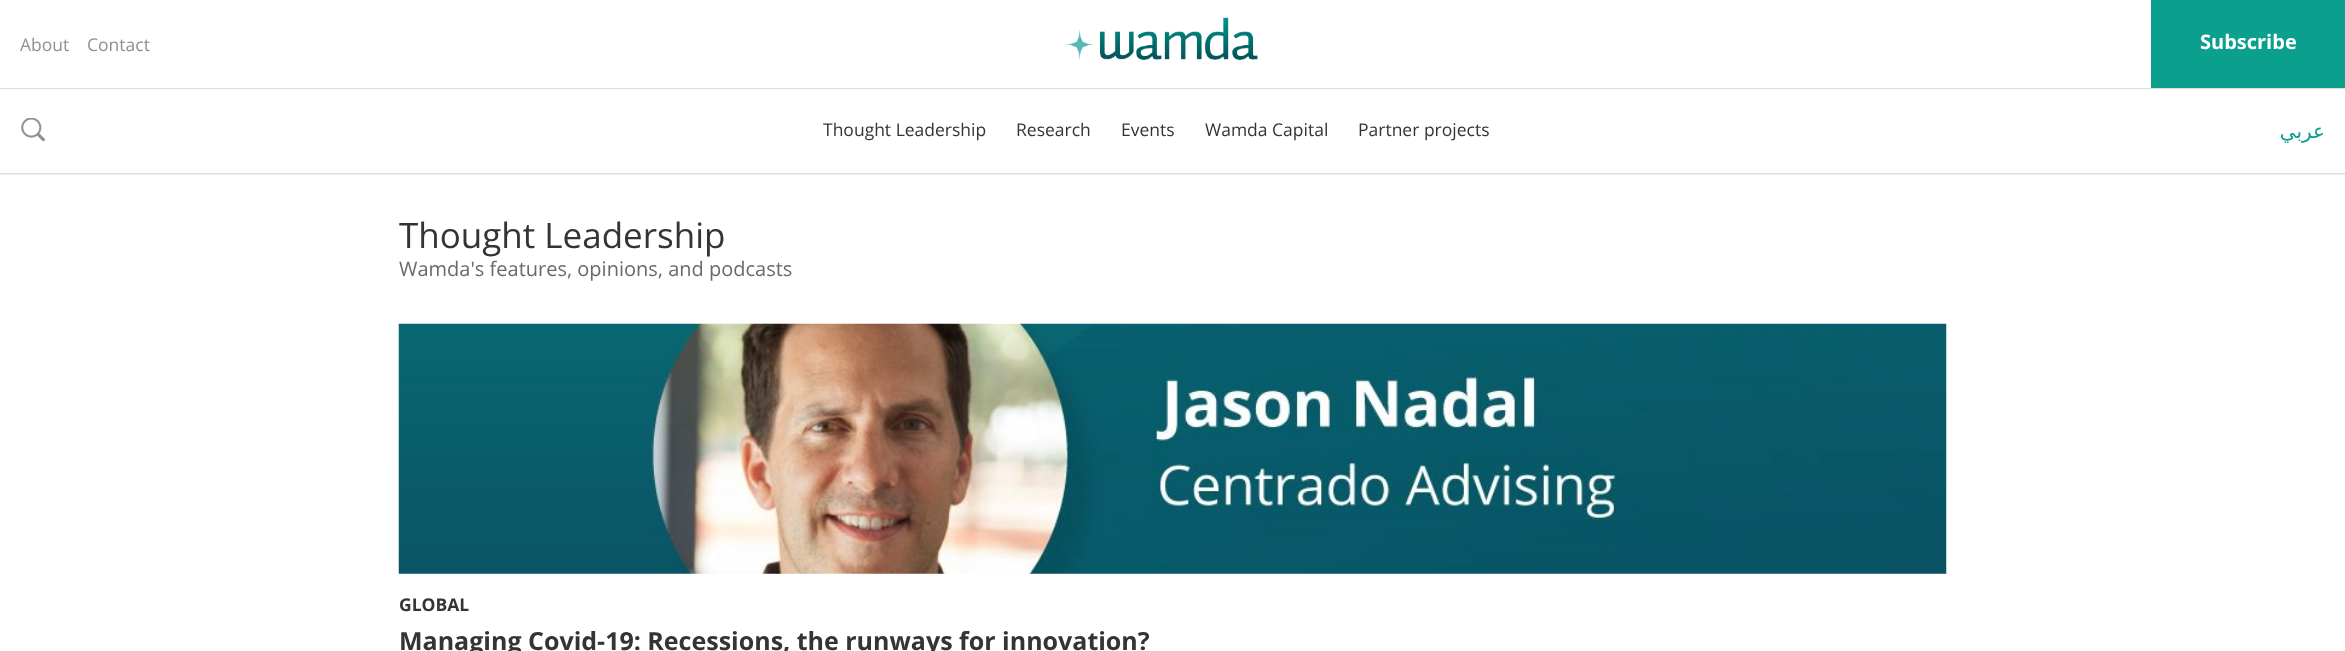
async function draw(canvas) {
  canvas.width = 2345;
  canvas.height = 651;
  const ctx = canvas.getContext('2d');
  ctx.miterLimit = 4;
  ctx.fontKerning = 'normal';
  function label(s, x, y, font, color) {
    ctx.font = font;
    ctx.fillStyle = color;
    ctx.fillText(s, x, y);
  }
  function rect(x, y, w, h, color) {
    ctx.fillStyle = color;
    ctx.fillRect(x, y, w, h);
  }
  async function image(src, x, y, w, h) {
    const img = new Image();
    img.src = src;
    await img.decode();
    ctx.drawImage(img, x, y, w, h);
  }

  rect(0, 0, 2345, 651, '#fff');
  rect(0, 174, 2345, 1, '#eee');
  label('About', 20, 51, '17.5px Open Sans', '#8e9091');
  label('Contact', 87, 51, '17.5px Open Sans', '#8e9091');
  await image('assets/img1.png', 1063, 17, 195, 44);
  rect(2151, 0, 194, 88, '#0b9f8e');
  label('Subscribe', 2200, 49, 'bold 20px Open Sans', '#fff');
  rect(0, 88, 2345, 1, '#ddd');
  rect(0, 173, 2345, 1, '#ddd');
  await image('assets/img2.png', 21, 118, 24, 23);
  label('Thought Leadership', 823, 136, '17.5px Open Sans', '#343434');
  label('Research', 1016, 136, '17.5px Open Sans', '#343434');
  label('Events', 1121, 136, '17.5px Open Sans', '#343434');
  label('Wamda Capital', 1205, 136, '17.5px Open Sans', '#343434');
  label('Partner projects', 1358, 136, '17.5px Open Sans', '#343434');
  ctx.direction = 'rtl';
  label('عربي', 2325, 138, '20px DejaVu Sans', '#0b9f8e');
  ctx.direction = 'ltr';
  label('Thought Leadership', 399, 248, '35px Open Sans', '#343434');
  label('Wamda\'s features, opinions, and podcasts', 399, 276, '20px Open Sans', '#676a6c');
  await image('assets/img3.png', 398, 323, 1549, 251);
  label('GLOBAL', 399, 611, 'bold 17.5px Open Sans', '#343434');
  label('Managing Covid-19: Recessions, the runways for innovation?', 399, 650, 'bold 25px Open Sans', '#343434');
}

draw(document.querySelector('canvas'));
